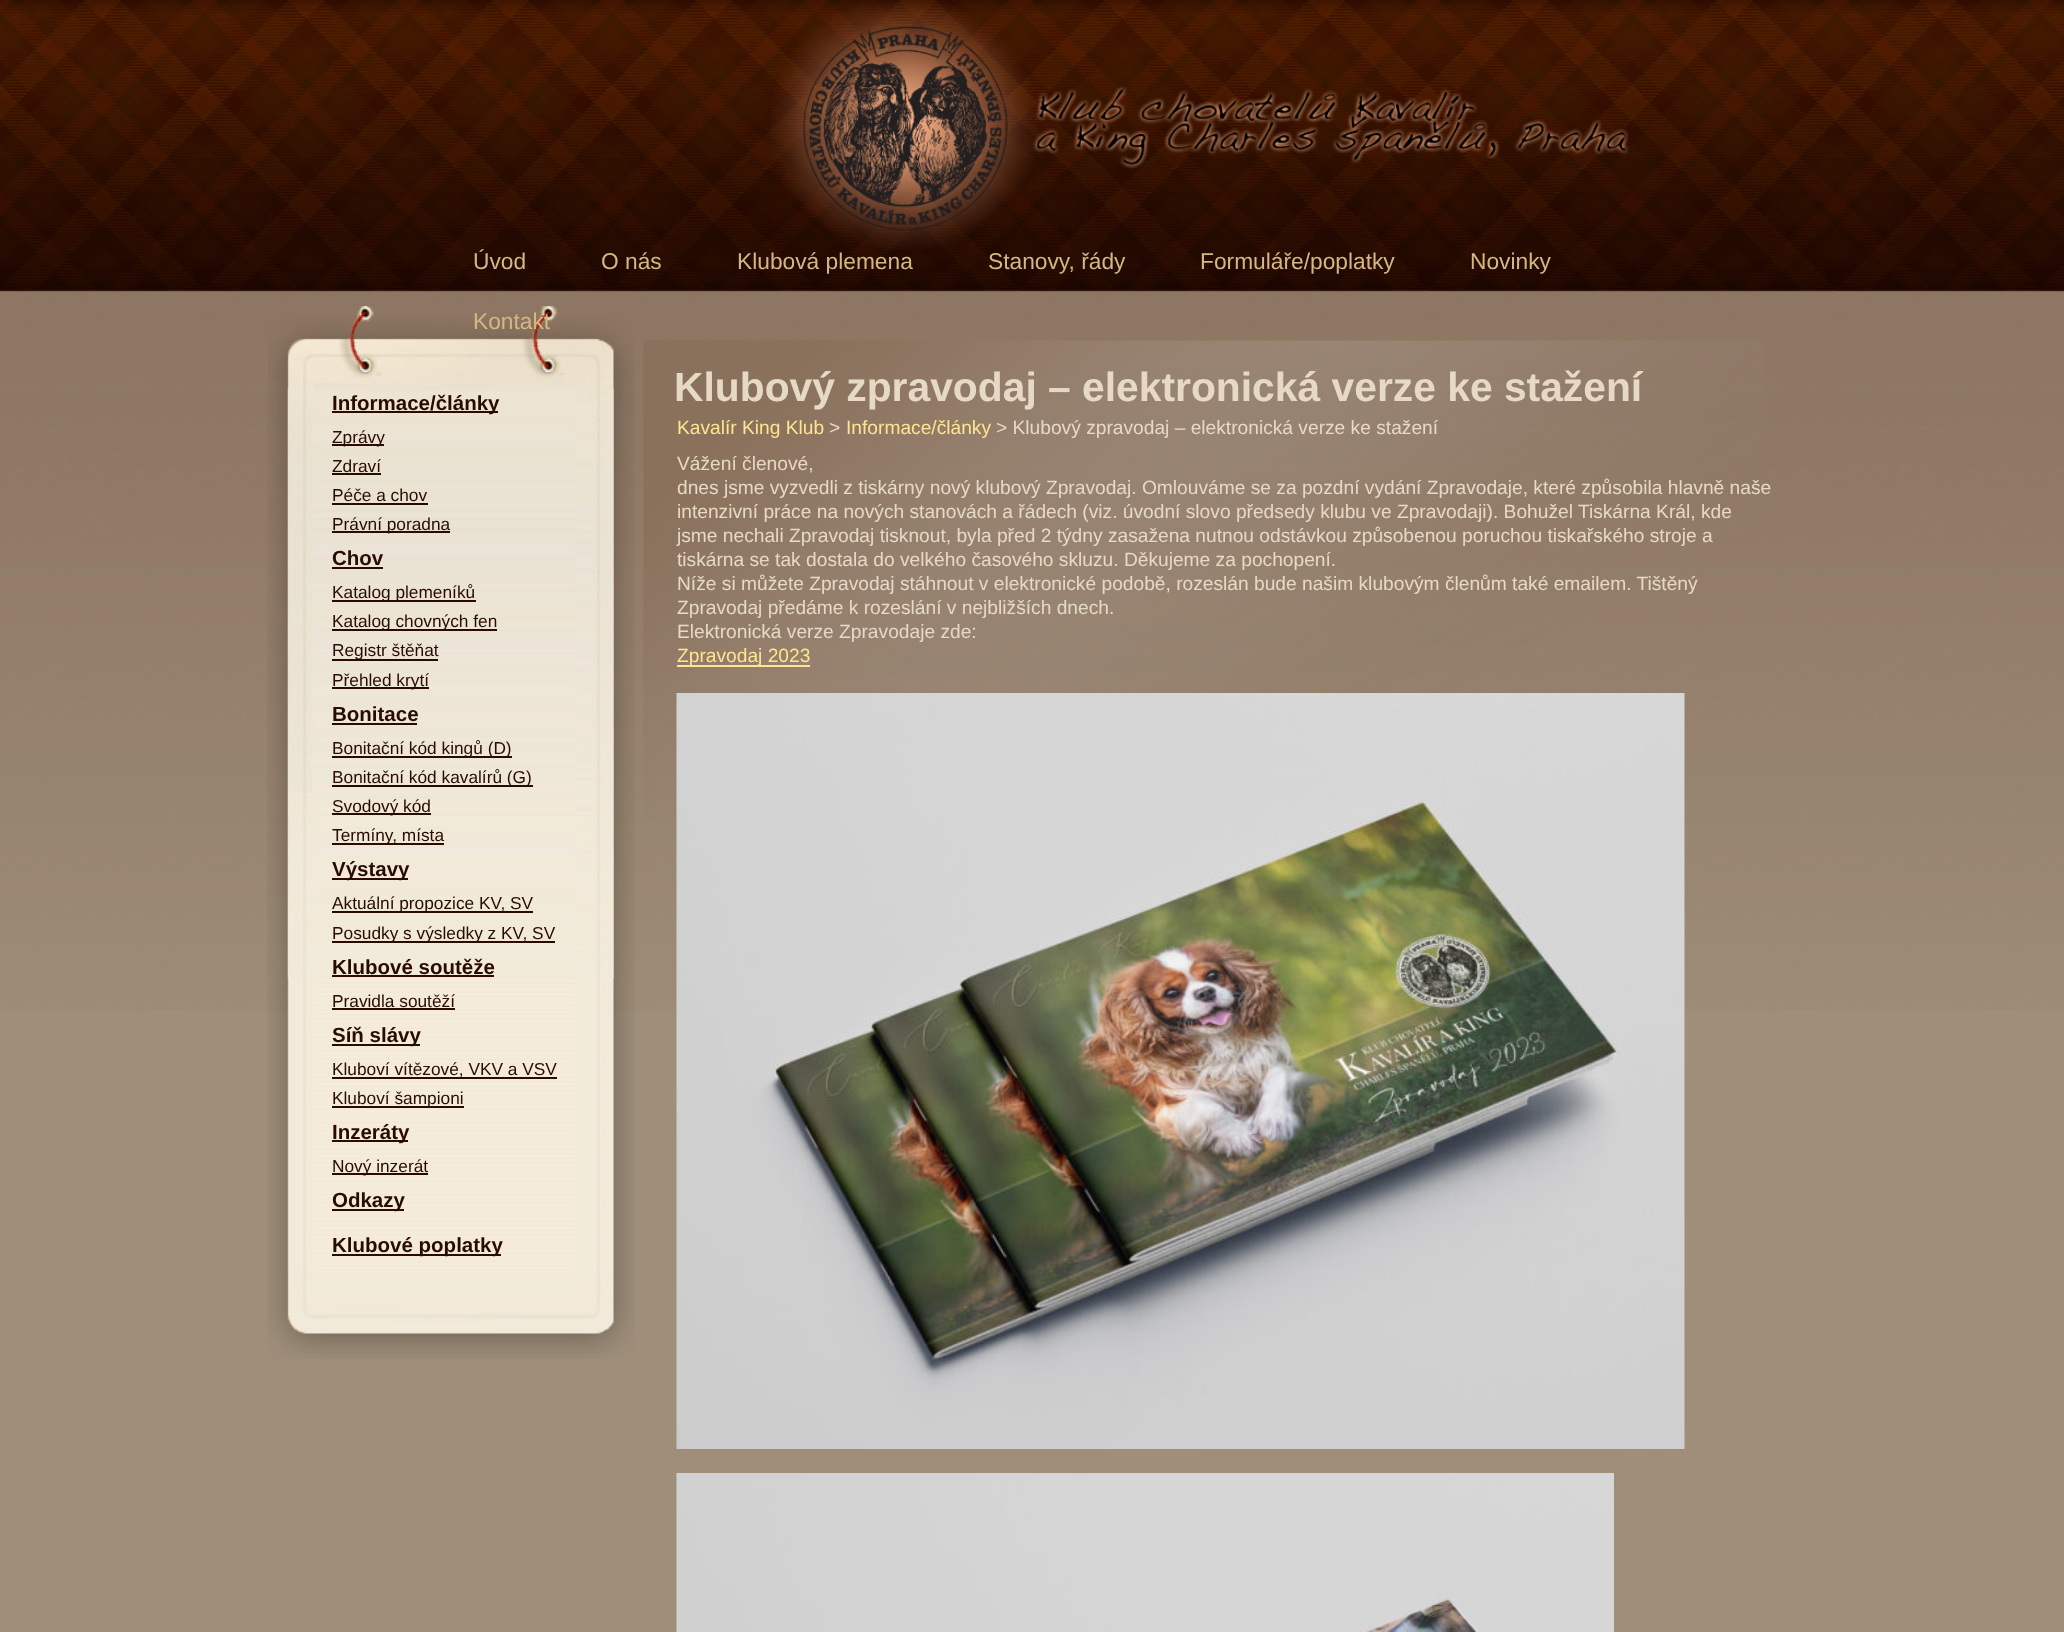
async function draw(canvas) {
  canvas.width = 2064;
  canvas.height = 1632;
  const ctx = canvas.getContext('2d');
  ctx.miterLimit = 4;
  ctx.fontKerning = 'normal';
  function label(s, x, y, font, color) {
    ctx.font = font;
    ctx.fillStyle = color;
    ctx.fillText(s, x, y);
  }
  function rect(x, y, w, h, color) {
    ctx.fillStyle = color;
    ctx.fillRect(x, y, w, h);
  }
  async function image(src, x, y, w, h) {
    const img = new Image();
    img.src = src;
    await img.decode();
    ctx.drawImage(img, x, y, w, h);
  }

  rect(0, 0, 2064, 1632, '#9e8e7a');
  await image('assets/img1.png', 0, 0, 2064, 1011);
  await image('assets/img2.png', 770, 0, 859, 250);
  label('Úvod', 473, 269, '22.75px Liberation Sans', '#d5b781');
  label('O nás', 601, 269, '22.75px Liberation Sans', '#d5b781');
  label('Klubová plemena', 737, 269, '22.75px Liberation Sans', '#d5b781');
  label('Stanovy, řády', 988, 269, '22.75px Liberation Sans', '#d5b781');
  label('Formuláře/poplatky', 1200, 269, '22.75px Liberation Sans', '#d5b781');
  label('Novinky', 1470, 269, '22.75px Liberation Sans', '#d5b781');
  await image('assets/img4.png', 267, 388, 368, 881);
  await image('assets/img5.png', 268, 306, 366, 673);
  label('Kontakt', 473, 329, '22.75px Liberation Sans', '#d5b781');
  await image('assets/img3.png', 267, 1269, 368, 90);
  rect(332, 411, 166, 2, '#290b01');
  label('Informace/články', 332, 410, 'bold 20.5px Liberation Sans', '#290b01');
  rect(332, 444, 52, 2, '#290b01');
  label('Zprávy', 332, 443, '17.3px Liberation Sans', '#290b01');
  label('Zdraví', 332, 472, '17.3px Liberation Sans', '#290b01');
  rect(332, 473, 49, 2, '#290b01');
  label('Péče a chov', 332, 501, '17.3px Liberation Sans', '#290b01');
  rect(332, 503, 96, 2, '#290b01');
  rect(332, 531, 118, 2, '#290b01');
  label('Právní poradna', 332, 530, '17.3px Liberation Sans', '#290b01');
  label('Chov', 332, 565, 'bold 20.5px Liberation Sans', '#290b01');
  rect(332, 567, 51, 2, '#290b01');
  rect(332, 600, 144, 2, '#290b01');
  label('Katalog plemeníků', 332, 598, '17.3px Liberation Sans', '#290b01');
  rect(332, 629, 165, 2, '#290b01');
  label('Katalog chovných fen', 332, 627, '17.3px Liberation Sans', '#290b01');
  rect(332, 659, 106, 2, '#290b01');
  label('Registr štěňat', 332, 656, '17.3px Liberation Sans', '#290b01');
  rect(332, 687, 97, 2, '#290b01');
  label('Přehled krytí', 332, 686, '17.3px Liberation Sans', '#290b01');
  label('Bonitace', 332, 721, 'bold 20.5px Liberation Sans', '#290b01');
  rect(332, 723, 85, 2, '#290b01');
  rect(332, 756, 180, 2, '#290b01');
  label('Bonitační kód kingů (D)', 332, 754, '17.3px Liberation Sans', '#290b01');
  rect(332, 785, 201, 2, '#290b01');
  label('Bonitační kód kavalírů (G)', 332, 783, '17.3px Liberation Sans', '#290b01');
  rect(332, 813, 99, 2, '#290b01');
  label('Svodový kód', 332, 812, '17.3px Liberation Sans', '#290b01');
  rect(332, 843, 112, 2, '#290b01');
  label('Termíny, místa', 332, 841, '17.3px Liberation Sans', '#290b01');
  rect(332, 878, 76, 2, '#290b01');
  label('Výstavy', 332, 876, 'bold 20.5px Liberation Sans', '#290b01');
  rect(332, 911, 201, 2, '#290b01');
  label('Aktuální propozice KV, SV', 332, 909, '17.3px Liberation Sans', '#290b01');
  rect(332, 941, 223, 2, '#290b01');
  label('Posudky s výsledky z KV, SV', 332, 939, '17.3px Liberation Sans', '#290b01');
  label('Klubové soutěže', 332, 974, 'bold 20.5px Liberation Sans', '#290b01');
  rect(332, 975, 162, 2, '#290b01');
  label('Pravidla soutěží', 332, 1007, '17.3px Liberation Sans', '#290b01');
  rect(332, 1008, 123, 2, '#290b01');
  rect(332, 1044, 88, 2, '#290b01');
  label('Síň slávy', 332, 1042, 'bold 20.5px Liberation Sans', '#290b01');
  rect(332, 1077, 225, 2, '#290b01');
  label('Kluboví vítězové, VKV a VSV', 332, 1075, '17.3px Liberation Sans', '#290b01');
  rect(332, 1106, 132, 2, '#290b01');
  label('Kluboví šampioni', 332, 1104, '17.3px Liberation Sans', '#290b01');
  rect(332, 1140, 76, 2, '#290b01');
  label('Inzeráty', 332, 1139, 'bold 20.5px Liberation Sans', '#290b01');
  rect(332, 1173, 96, 2, '#290b01');
  label('Nový inzerát', 332, 1172, '17.3px Liberation Sans', '#290b01');
  rect(332, 1209, 72, 2, '#290b01');
  label('Odkazy', 332, 1207, 'bold 20.5px Liberation Sans', '#290b01');
  rect(332, 1254, 169, 2, '#290b01');
  label('Klubové poplatky', 332, 1252, 'bold 20.5px Liberation Sans', '#290b01');
  await image('assets/img6.png', 643, 340, 1122, 479);
  label('Klubový zpravodaj – elektronická verze ke stažení', 674, 401, 'bold 40.8px Liberation Sans', '#e6d9c6');
  label('Kavalír King Klub', 677, 434, '19.2px Liberation Sans', '#ffe491');
  label('>', 829, 434, '19.2px Liberation Sans', '#e6d9c6');
  label('Informace/články', 846, 434, '19.2px Liberation Sans', '#ffe491');
  label('> Klubový zpravodaj – elektronická verze ke stažení', 996, 434, '19.2px Liberation Sans', '#e6d9c6');
  label('Vážení členové,', 677, 470, '19.2px Liberation Sans', '#e6d9c6');
  label('dnes jsme vyzvedli z tiskárny nový klubový Zpravodaj. Omlouváme se za pozdní vydání Zpravodaje, které způsobila hlavně naše', 677, 494, '19.2px Liberation Sans', '#e6d9c6');
  label('intenzivní práce na nových stanovách a řádech (viz. úvodní slovo předsedy klubu ve Zpravodaji). Bohužel Tiskárna Král, kde', 677, 518, '19.2px Liberation Sans', '#e6d9c6');
  label('jsme nechali Zpravodaj tisknout, byla před 2 týdny zasažena nutnou odstávkou způsobenou poruchou tiskařského stroje a', 677, 542, '19.2px Liberation Sans', '#e6d9c6');
  label('tiskárna se tak dostala do velkého časového skluzu. Děkujeme za pochopení.', 677, 566, '19.2px Liberation Sans', '#e6d9c6');
  label('Níže si můžete Zpravodaj stáhnout v elektronické podobě, rozeslán bude našim klubovým členům také emailem. Tištěný', 677, 590, '19.2px Liberation Sans', '#e6d9c6');
  label('Zpravodaj předáme k rozeslání v nejbližších dnech.', 677, 614, '19.2px Liberation Sans', '#e6d9c6');
  label('Elektronická verze Zpravodaje zde:', 677, 638, '19.2px Liberation Sans', '#e6d9c6');
  rect(677, 665, 133, 2, '#ffe491');
  label('Zpravodaj 2023', 677, 662, '19.2px Liberation Sans', '#ffe491');
  await image('assets/img7.png', 676, 693, 1009, 756);
  await image('assets/img8.png', 676, 1473, 938, 159);
}

draw(document.querySelector('canvas'));
